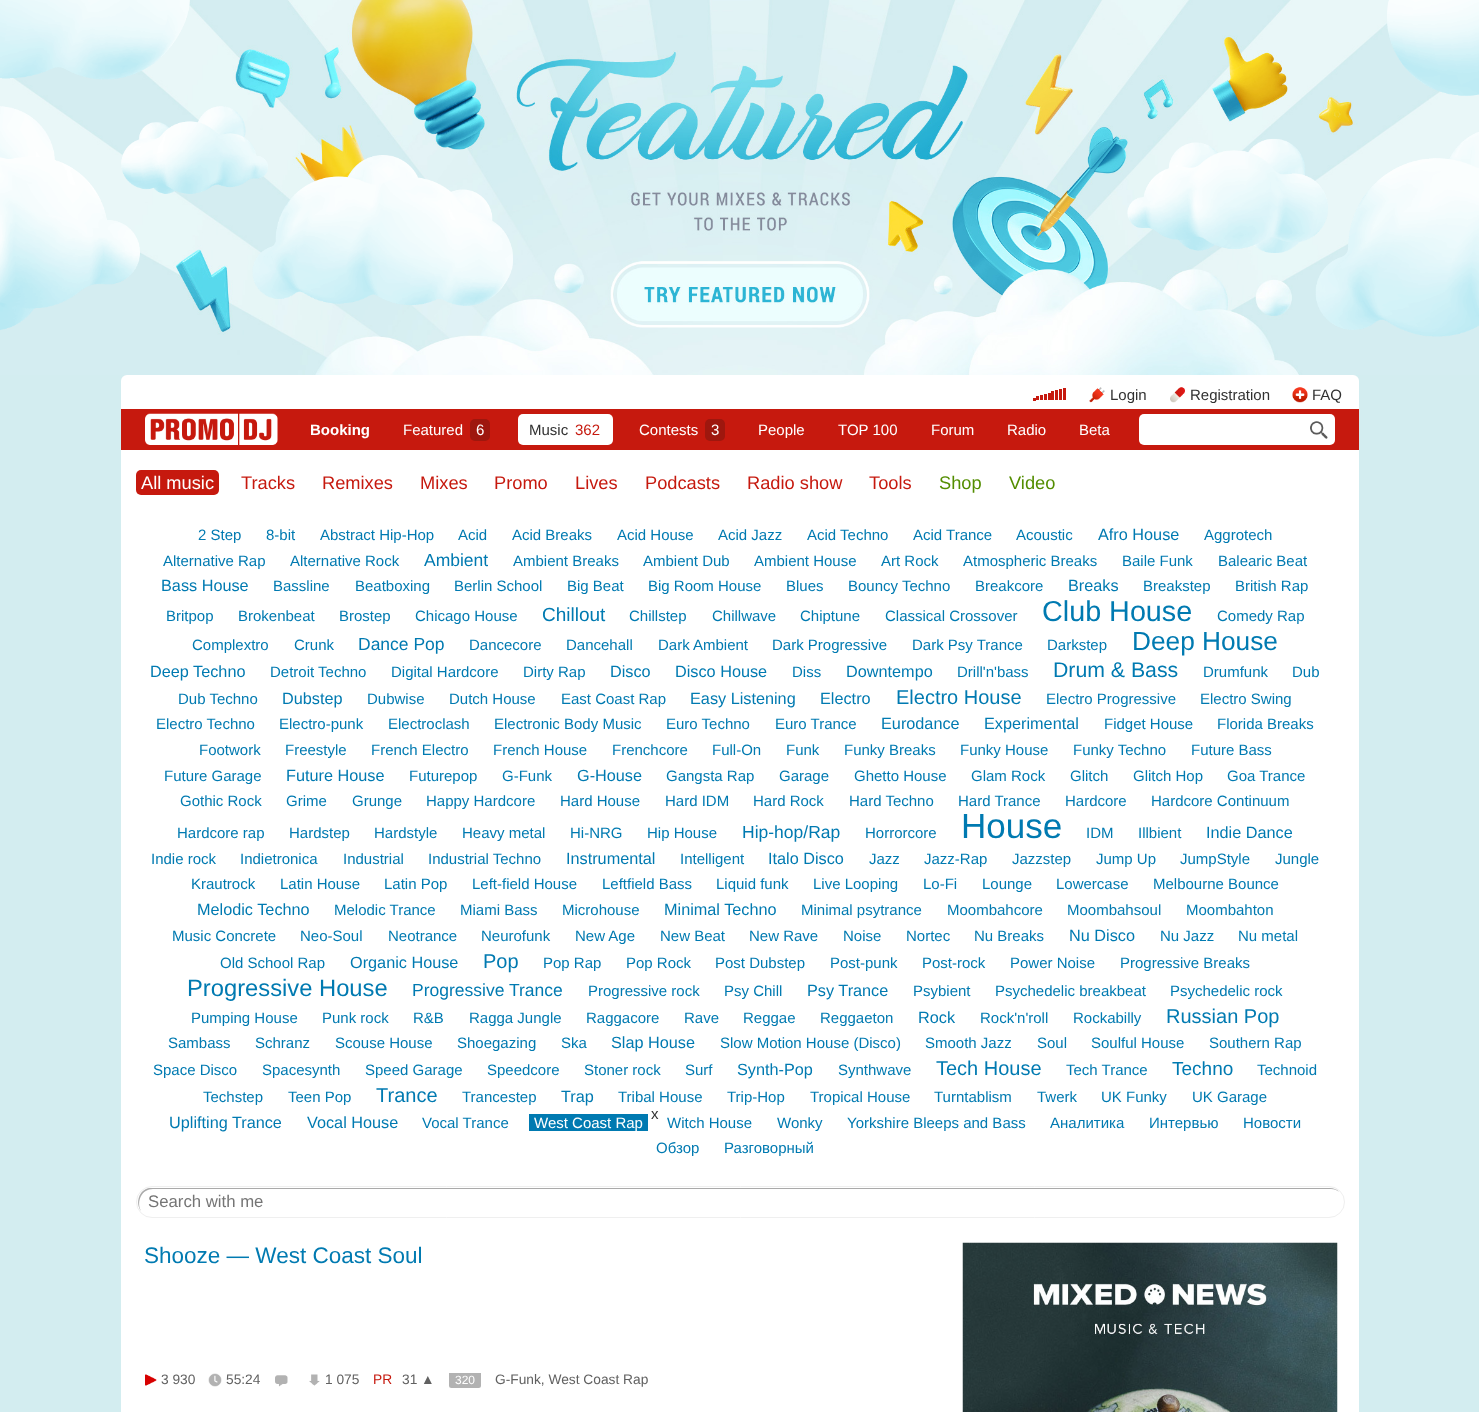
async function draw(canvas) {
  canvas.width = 1479;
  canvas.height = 1412;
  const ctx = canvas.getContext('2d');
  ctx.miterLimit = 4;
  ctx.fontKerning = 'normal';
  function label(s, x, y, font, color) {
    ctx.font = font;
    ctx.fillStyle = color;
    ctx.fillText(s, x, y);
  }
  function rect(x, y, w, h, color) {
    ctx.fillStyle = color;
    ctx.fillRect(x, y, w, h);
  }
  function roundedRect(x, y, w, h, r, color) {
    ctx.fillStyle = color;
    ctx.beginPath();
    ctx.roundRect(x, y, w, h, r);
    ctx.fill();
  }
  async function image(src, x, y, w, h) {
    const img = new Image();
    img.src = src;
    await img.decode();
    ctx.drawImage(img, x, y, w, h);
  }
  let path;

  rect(0, 0, 1479, 1412, '#d3edf0');
  await image('assets/img1.png', 0, 0, 1479, 375);
  await image('assets/img2.png', 0, 0, 1479, 337);
  ctx.fillStyle = '#fff';
  ctx.beginPath();
  ctx.roundRect(121, 375, 1238, 34, [6, 6, 0, 0]);
  ctx.fill();
  rect(1033, 398, 3, 3, '#c6190e');
  rect(1036, 396, 3, 4, '#c6190e');
  rect(1040, 395, 3, 5, '#c6190e');
  rect(1044, 394, 3, 6, '#c6190e');
  rect(1048, 393, 3, 7, '#c6190e');
  rect(1051, 391, 3, 9, '#c6190e');
  rect(1055, 390, 3, 10, '#c6190e');
  rect(1059, 389, 3, 11, '#c6190e');
  rect(1063, 388, 3, 12, '#c6190e');
  await image('assets/img3.png', 1089, 387, 16, 16);
  label('Login', 1110, 400, '15px Liberation Sans', '#313131');
  await image('assets/img4.png', 1170, 387, 15, 16);
  label('Registration', 1190, 400, '15px Liberation Sans', '#313131');
  await image('assets/img5.png', 1292, 387, 16, 16);
  label('FAQ', 1312, 400, '15px Liberation Sans', '#313131');
  rect(121, 409, 1238, 41, '#c6190e');
  await image('assets/img6.png', 145, 413, 133, 32);
  label('Booking', 310, 435, 'bold 15px Liberation Sans', '#fff');
  label('Featured', 403, 435, '15px Liberation Sans', '#fff');
  roundedRect(470, 419, 20, 22, 5, '#9e170e');
  label('6', 476, 435, '15px Liberation Sans', '#fff');
  roundedRect(518, 414, 95, 31, 5, '#fff');
  label('Music', 529, 435, '15px Liberation Sans', '#313131');
  label('362', 575, 435, '15px Liberation Sans', '#c6190e');
  label('Сontests', 639, 435, '15px Liberation Sans', '#fff');
  roundedRect(705, 419, 20, 22, 5, '#9e170e');
  label('3', 711, 435, '15px Liberation Sans', '#fff');
  label('People', 758, 435, '15px Liberation Sans', '#fff');
  label('TOP 100', 838, 435, '15px Liberation Sans', '#fff');
  label('Forum', 931, 435, '15px Liberation Sans', '#fff');
  label('Radio', 1007, 435, '15px Liberation Sans', '#fff');
  label('Beta', 1079, 435, '15px Liberation Sans', '#fff');
  roundedRect(1139, 414, 196, 31, 5, '#fff');
  await image('assets/img7.png', 1310, 421, 18, 18);
  rect(121, 450, 1238, 962, '#fff');
  roundedRect(136, 470, 83, 25, 5, '#c6190e');
  label('All music', 141, 489, '18.25px Liberation Sans', '#fff');
  label('Tracks', 241, 489, '18.25px Liberation Sans', '#c6190e');
  label('Remixes', 322, 489, '18.25px Liberation Sans', '#c6190e');
  label('Mixes', 420, 489, '18.25px Liberation Sans', '#c6190e');
  label('Promo', 494, 489, '18.25px Liberation Sans', '#c6190e');
  label('Lives', 575, 489, '18.25px Liberation Sans', '#c6190e');
  label('Podcasts', 645, 489, '18.25px Liberation Sans', '#c6190e');
  label('Radio show', 747, 489, '18.25px Liberation Sans', '#c6190e');
  label('Tools', 869, 489, '18.25px Liberation Sans', '#c6190e');
  label('Shop', 939, 489, '18.25px Liberation Sans', '#538d00');
  label('Video', 1009, 489, '18.25px Liberation Sans', '#538d00');
  label('2 Step', 198, 540, '15px Liberation Sans', '#007ab1');
  label('8-bit', 266, 540, '15px Liberation Sans', '#007ab1');
  label('Abstract Hip-Hop', 320, 540, '15px Liberation Sans', '#007ab1');
  label('Acid', 458, 540, '15px Liberation Sans', '#007ab1');
  label('Acid Breaks', 512, 540, '15px Liberation Sans', '#007ab1');
  label('Acid House', 617, 540, '15px Liberation Sans', '#007ab1');
  label('Acid Jazz', 718, 540, '15px Liberation Sans', '#007ab1');
  label('Acid Techno', 807, 540, '15px Liberation Sans', '#007ab1');
  label('Acid Trance', 913, 540, '15px Liberation Sans', '#007ab1');
  label('Acoustic', 1016, 540, '15px Liberation Sans', '#007ab1');
  label('Afro House', 1098, 540, '16.25px Liberation Sans', '#007ab1');
  label('Aggrotech', 1204, 540, '15px Liberation Sans', '#007ab1');
  label('Alternative Rap', 163, 566, '15px Liberation Sans', '#007ab1');
  label('Alternative Rock', 290, 566, '15px Liberation Sans', '#007ab1');
  label('Ambient', 424, 566, '17.5px Liberation Sans', '#007ab1');
  label('Ambient Breaks', 513, 566, '15px Liberation Sans', '#007ab1');
  label('Ambient Dub', 643, 566, '15px Liberation Sans', '#007ab1');
  label('Ambient House', 754, 566, '15px Liberation Sans', '#007ab1');
  label('Art Rock', 881, 566, '15px Liberation Sans', '#007ab1');
  label('Atmospheric Breaks', 963, 566, '15px Liberation Sans', '#007ab1');
  label('Baile Funk', 1122, 566, '15px Liberation Sans', '#007ab1');
  label('Balearic Beat', 1218, 566, '15px Liberation Sans', '#007ab1');
  label('Bass House', 161, 591, '16.25px Liberation Sans', '#007ab1');
  label('Bassline', 273, 591, '15px Liberation Sans', '#007ab1');
  label('Beatboxing', 355, 591, '15px Liberation Sans', '#007ab1');
  label('Berlin School', 454, 591, '15px Liberation Sans', '#007ab1');
  label('Big Beat', 567, 591, '15px Liberation Sans', '#007ab1');
  label('Big Room House', 648, 591, '15px Liberation Sans', '#007ab1');
  label('Blues', 786, 591, '15px Liberation Sans', '#007ab1');
  label('Bouncy Techno', 848, 591, '15px Liberation Sans', '#007ab1');
  label('Breakcore', 975, 591, '15px Liberation Sans', '#007ab1');
  label('Breaks', 1068, 591, '16.25px Liberation Sans', '#007ab1');
  label('Breakstep', 1143, 591, '15px Liberation Sans', '#007ab1');
  label('British Rap', 1235, 591, '15px Liberation Sans', '#007ab1');
  label('Britpop', 166, 621, '15px Liberation Sans', '#007ab1');
  label('Brokenbeat', 238, 621, '15px Liberation Sans', '#007ab1');
  label('Brostep', 339, 621, '15px Liberation Sans', '#007ab1');
  label('Chicago House', 415, 621, '15px Liberation Sans', '#007ab1');
  label('Chillout', 542, 621, '19px Liberation Sans', '#007ab1');
  label('Chillstep', 629, 621, '15px Liberation Sans', '#007ab1');
  label('Chillwave', 712, 621, '15px Liberation Sans', '#007ab1');
  label('Chiptune', 800, 621, '15px Liberation Sans', '#007ab1');
  label('Classical Crossover', 885, 621, '15px Liberation Sans', '#007ab1');
  label('Club House', 1042, 621, '28.75px Liberation Sans', '#007ab1');
  label('Comedy Rap', 1217, 621, '15px Liberation Sans', '#007ab1');
  label('Complextro', 192, 650, '15px Liberation Sans', '#007ab1');
  label('Crunk', 294, 650, '15px Liberation Sans', '#007ab1');
  label('Dance Pop', 358, 650, '17.5px Liberation Sans', '#007ab1');
  label('Dancecore', 469, 650, '15px Liberation Sans', '#007ab1');
  label('Dancehall', 566, 650, '15px Liberation Sans', '#007ab1');
  label('Dark Ambient', 658, 650, '15px Liberation Sans', '#007ab1');
  label('Dark Progressive', 772, 650, '15px Liberation Sans', '#007ab1');
  label('Dark Psy Trance', 912, 650, '15px Liberation Sans', '#007ab1');
  label('Darkstep', 1047, 650, '15px Liberation Sans', '#007ab1');
  label('Deep House', 1132, 650, '26.25px Liberation Sans', '#007ab1');
  label('Deep Techno', 150, 677, '16.25px Liberation Sans', '#007ab1');
  label('Detroit Techno', 270, 677, '15px Liberation Sans', '#007ab1');
  label('Digital Hardcore', 391, 677, '15px Liberation Sans', '#007ab1');
  label('Dirty Rap', 523, 677, '15px Liberation Sans', '#007ab1');
  label('Disco', 610, 677, '16.25px Liberation Sans', '#007ab1');
  label('Disco House', 675, 677, '16.25px Liberation Sans', '#007ab1');
  label('Diss', 792, 677, '15px Liberation Sans', '#007ab1');
  label('Downtempo', 846, 677, '16.25px Liberation Sans', '#007ab1');
  label('Drill\'n\'bass', 957, 677, '15px Liberation Sans', '#007ab1');
  label('Drum & Bass', 1053, 677, '21.25px Liberation Sans', '#007ab1');
  label('Drumfunk', 1203, 677, '15px Liberation Sans', '#007ab1');
  label('Dub', 1292, 677, '15px Liberation Sans', '#007ab1');
  label('Dub Techno', 178, 704, '15px Liberation Sans', '#007ab1');
  label('Dubstep', 282, 704, '16.25px Liberation Sans', '#007ab1');
  label('Dubwise', 367, 704, '15px Liberation Sans', '#007ab1');
  label('Dutch House', 449, 704, '15px Liberation Sans', '#007ab1');
  label('East Coast Rap', 561, 704, '15px Liberation Sans', '#007ab1');
  label('Easy Listening', 690, 704, '16.25px Liberation Sans', '#007ab1');
  label('Electro', 820, 704, '16.25px Liberation Sans', '#007ab1');
  label('Electro House', 896, 704, '20px Liberation Sans', '#007ab1');
  label('Electro Progressive', 1046, 704, '15px Liberation Sans', '#007ab1');
  label('Electro Swing', 1200, 704, '15px Liberation Sans', '#007ab1');
  label('Electro Techno', 156, 729, '15px Liberation Sans', '#007ab1');
  label('Electro-punk', 279, 729, '15px Liberation Sans', '#007ab1');
  label('Electroclash', 388, 729, '15px Liberation Sans', '#007ab1');
  label('Electronic Body Music', 494, 729, '15px Liberation Sans', '#007ab1');
  label('Euro Techno', 666, 729, '15px Liberation Sans', '#007ab1');
  label('Euro Trance', 775, 729, '15px Liberation Sans', '#007ab1');
  label('Eurodance', 881, 729, '16.25px Liberation Sans', '#007ab1');
  label('Experimental', 984, 729, '16.25px Liberation Sans', '#007ab1');
  label('Fidget House', 1104, 729, '15px Liberation Sans', '#007ab1');
  label('Florida Breaks', 1217, 729, '15px Liberation Sans', '#007ab1');
  label('Footwork', 199, 755, '15px Liberation Sans', '#007ab1');
  label('Freestyle', 285, 755, '15px Liberation Sans', '#007ab1');
  label('French Electro', 371, 755, '15px Liberation Sans', '#007ab1');
  label('French House', 493, 755, '15px Liberation Sans', '#007ab1');
  label('Frenchcore', 612, 755, '15px Liberation Sans', '#007ab1');
  label('Full-On', 712, 755, '15px Liberation Sans', '#007ab1');
  label('Funk', 786, 755, '15px Liberation Sans', '#007ab1');
  label('Funky Breaks', 844, 755, '15px Liberation Sans', '#007ab1');
  label('Funky House', 960, 755, '15px Liberation Sans', '#007ab1');
  label('Funky Techno', 1073, 755, '15px Liberation Sans', '#007ab1');
  label('Future Bass', 1191, 755, '15px Liberation Sans', '#007ab1');
  label('Future Garage', 164, 781, '15px Liberation Sans', '#007ab1');
  label('Future House', 286, 781, '16.25px Liberation Sans', '#007ab1');
  label('Futurepop', 409, 781, '15px Liberation Sans', '#007ab1');
  label('G-Funk', 502, 781, '15px Liberation Sans', '#007ab1');
  label('G-House', 577, 781, '16.25px Liberation Sans', '#007ab1');
  label('Gangsta Rap', 666, 781, '15px Liberation Sans', '#007ab1');
  label('Garage', 779, 781, '15px Liberation Sans', '#007ab1');
  label('Ghetto House', 854, 781, '15px Liberation Sans', '#007ab1');
  label('Glam Rock', 971, 781, '15px Liberation Sans', '#007ab1');
  label('Glitch', 1070, 781, '15px Liberation Sans', '#007ab1');
  label('Glitch Hop', 1133, 781, '15px Liberation Sans', '#007ab1');
  label('Goa Trance', 1227, 781, '15px Liberation Sans', '#007ab1');
  label('Gothic Rock', 180, 806, '15px Liberation Sans', '#007ab1');
  label('Grime', 286, 806, '15px Liberation Sans', '#007ab1');
  label('Grunge', 352, 806, '15px Liberation Sans', '#007ab1');
  label('Happy Hardcore', 426, 806, '15px Liberation Sans', '#007ab1');
  label('Hard House', 560, 806, '15px Liberation Sans', '#007ab1');
  label('Hard IDM', 665, 806, '15px Liberation Sans', '#007ab1');
  label('Hard Rock', 753, 806, '15px Liberation Sans', '#007ab1');
  label('Hard Techno', 849, 806, '15px Liberation Sans', '#007ab1');
  label('Hard Trance', 958, 806, '15px Liberation Sans', '#007ab1');
  label('Hardcore', 1065, 806, '15px Liberation Sans', '#007ab1');
  label('Hardcore Continuum', 1151, 806, '15px Liberation Sans', '#007ab1');
  label('Hardcore rap', 177, 838, '15px Liberation Sans', '#007ab1');
  label('Hardstep', 289, 838, '15px Liberation Sans', '#007ab1');
  label('Hardstyle', 374, 838, '15px Liberation Sans', '#007ab1');
  label('Heavy metal', 462, 838, '15px Liberation Sans', '#007ab1');
  label('Hi-NRG', 570, 838, '15px Liberation Sans', '#007ab1');
  label('Hip House', 647, 838, '15px Liberation Sans', '#007ab1');
  label('Hip-hop/Rap', 742, 838, '17.5px Liberation Sans', '#007ab1');
  label('Horrorcore', 865, 838, '15px Liberation Sans', '#007ab1');
  label('House', 961, 838, '35px Liberation Sans', '#007ab1');
  label('IDM', 1086, 838, '15px Liberation Sans', '#007ab1');
  label('Illbient', 1138, 838, '15px Liberation Sans', '#007ab1');
  label('Indie Dance', 1206, 838, '16.25px Liberation Sans', '#007ab1');
  label('Indie rock', 151, 864, '15px Liberation Sans', '#007ab1');
  label('Indietronica', 240, 864, '15px Liberation Sans', '#007ab1');
  label('Industrial', 343, 864, '15px Liberation Sans', '#007ab1');
  label('Industrial Techno', 428, 864, '15px Liberation Sans', '#007ab1');
  label('Instrumental', 566, 864, '16.25px Liberation Sans', '#007ab1');
  label('Intelligent', 680, 864, '15px Liberation Sans', '#007ab1');
  label('Italo Disco', 768, 864, '16.25px Liberation Sans', '#007ab1');
  label('Jazz', 869, 864, '15px Liberation Sans', '#007ab1');
  label('Jazz-Rap', 924, 864, '15px Liberation Sans', '#007ab1');
  label('Jazzstep', 1012, 864, '15px Liberation Sans', '#007ab1');
  label('Jump Up', 1096, 864, '15px Liberation Sans', '#007ab1');
  label('JumpStyle', 1180, 864, '15px Liberation Sans', '#007ab1');
  label('Jungle', 1275, 864, '15px Liberation Sans', '#007ab1');
  label('Krautrock', 191, 889, '15px Liberation Sans', '#007ab1');
  label('Latin House', 280, 889, '15px Liberation Sans', '#007ab1');
  label('Latin Pop', 384, 889, '15px Liberation Sans', '#007ab1');
  label('Left-field House', 472, 889, '15px Liberation Sans', '#007ab1');
  label('Leftfield Bass', 602, 889, '15px Liberation Sans', '#007ab1');
  label('Liquid funk', 716, 889, '15px Liberation Sans', '#007ab1');
  label('Live Looping', 813, 889, '15px Liberation Sans', '#007ab1');
  label('Lo-Fi', 923, 889, '15px Liberation Sans', '#007ab1');
  label('Lounge', 982, 889, '15px Liberation Sans', '#007ab1');
  label('Lowercase', 1056, 889, '15px Liberation Sans', '#007ab1');
  label('Melbourne Bounce', 1153, 889, '15px Liberation Sans', '#007ab1');
  label('Melodic Techno', 197, 915, '16.25px Liberation Sans', '#007ab1');
  label('Melodic Trance', 334, 915, '15px Liberation Sans', '#007ab1');
  label('Miami Bass', 460, 915, '15px Liberation Sans', '#007ab1');
  label('Microhouse', 562, 915, '15px Liberation Sans', '#007ab1');
  label('Minimal Techno', 664, 915, '16.25px Liberation Sans', '#007ab1');
  label('Minimal psytrance', 801, 915, '15px Liberation Sans', '#007ab1');
  label('Moombahcore', 947, 915, '15px Liberation Sans', '#007ab1');
  label('Moombahsoul', 1067, 915, '15px Liberation Sans', '#007ab1');
  label('Moombahton', 1186, 915, '15px Liberation Sans', '#007ab1');
  label('Music Concrete', 172, 941, '15px Liberation Sans', '#007ab1');
  label('Neo-Soul', 300, 941, '15px Liberation Sans', '#007ab1');
  label('Neotrance', 388, 941, '15px Liberation Sans', '#007ab1');
  label('Neurofunk', 481, 941, '15px Liberation Sans', '#007ab1');
  label('New Age', 575, 941, '15px Liberation Sans', '#007ab1');
  label('New Beat', 660, 941, '15px Liberation Sans', '#007ab1');
  label('New Rave', 749, 941, '15px Liberation Sans', '#007ab1');
  label('Noise', 843, 941, '15px Liberation Sans', '#007ab1');
  label('Nortec', 906, 941, '15px Liberation Sans', '#007ab1');
  label('Nu Breaks', 974, 941, '15px Liberation Sans', '#007ab1');
  label('Nu Disco', 1069, 941, '16.25px Liberation Sans', '#007ab1');
  label('Nu Jazz', 1160, 941, '15px Liberation Sans', '#007ab1');
  label('Nu metal', 1238, 941, '15px Liberation Sans', '#007ab1');
  label('Old School Rap', 220, 968, '15px Liberation Sans', '#007ab1');
  label('Organic House', 350, 968, '16.25px Liberation Sans', '#007ab1');
  label('Pop', 483, 968, '20px Liberation Sans', '#007ab1');
  label('Pop Rap', 543, 968, '15px Liberation Sans', '#007ab1');
  label('Pop Rock', 626, 968, '15px Liberation Sans', '#007ab1');
  label('Post Dubstep', 715, 968, '15px Liberation Sans', '#007ab1');
  label('Post-punk', 830, 968, '15px Liberation Sans', '#007ab1');
  label('Post-rock', 922, 968, '15px Liberation Sans', '#007ab1');
  label('Power Noise', 1010, 968, '15px Liberation Sans', '#007ab1');
  label('Progressive Breaks', 1120, 968, '15px Liberation Sans', '#007ab1');
  label('Progressive House', 187, 996, '23.75px Liberation Sans', '#007ab1');
  label('Progressive Trance', 412, 996, '17.5px Liberation Sans', '#007ab1');
  label('Progressive rock', 588, 996, '15px Liberation Sans', '#007ab1');
  label('Psy Chill', 724, 996, '15px Liberation Sans', '#007ab1');
  label('Psy Trance', 807, 996, '16.25px Liberation Sans', '#007ab1');
  label('Psybient', 913, 996, '15px Liberation Sans', '#007ab1');
  label('Psychedelic breakbeat', 995, 996, '15px Liberation Sans', '#007ab1');
  label('Psychedelic rock', 1170, 996, '15px Liberation Sans', '#007ab1');
  label('Pumping House', 191, 1023, '15px Liberation Sans', '#007ab1');
  label('Punk rock', 322, 1023, '15px Liberation Sans', '#007ab1');
  label('R&B', 413, 1023, '15px Liberation Sans', '#007ab1');
  label('Ragga Jungle', 469, 1023, '15px Liberation Sans', '#007ab1');
  label('Raggacore', 586, 1023, '15px Liberation Sans', '#007ab1');
  label('Rave', 684, 1023, '15px Liberation Sans', '#007ab1');
  label('Reggae', 743, 1023, '15px Liberation Sans', '#007ab1');
  label('Reggaeton', 820, 1023, '15px Liberation Sans', '#007ab1');
  label('Rock', 918, 1023, '16.25px Liberation Sans', '#007ab1');
  label('Rock\'n\'roll', 980, 1023, '15px Liberation Sans', '#007ab1');
  label('Rockabilly', 1073, 1023, '15px Liberation Sans', '#007ab1');
  label('Russian Pop', 1166, 1023, '20px Liberation Sans', '#007ab1');
  label('Sambass', 168, 1048, '15px Liberation Sans', '#007ab1');
  label('Schranz', 255, 1048, '15px Liberation Sans', '#007ab1');
  label('Scouse House', 335, 1048, '15px Liberation Sans', '#007ab1');
  label('Shoegazing', 457, 1048, '15px Liberation Sans', '#007ab1');
  label('Ska', 561, 1048, '15px Liberation Sans', '#007ab1');
  label('Slap House', 611, 1048, '16.25px Liberation Sans', '#007ab1');
  label('Slow Motion House (Disco)', 720, 1048, '15px Liberation Sans', '#007ab1');
  label('Smooth Jazz', 925, 1048, '15px Liberation Sans', '#007ab1');
  label('Soul', 1037, 1048, '15px Liberation Sans', '#007ab1');
  label('Soulful House', 1091, 1048, '15px Liberation Sans', '#007ab1');
  label('Southern Rap', 1209, 1048, '15px Liberation Sans', '#007ab1');
  label('Space Disco', 153, 1075, '15px Liberation Sans', '#007ab1');
  label('Spacesynth', 262, 1075, '15px Liberation Sans', '#007ab1');
  label('Speed Garage', 365, 1075, '15px Liberation Sans', '#007ab1');
  label('Speedcore', 487, 1075, '15px Liberation Sans', '#007ab1');
  label('Stoner rock', 584, 1075, '15px Liberation Sans', '#007ab1');
  label('Surf', 685, 1075, '15px Liberation Sans', '#007ab1');
  label('Synth-Pop', 737, 1075, '16.25px Liberation Sans', '#007ab1');
  label('Synthwave', 838, 1075, '15px Liberation Sans', '#007ab1');
  label('Tech House', 936, 1075, '20px Liberation Sans', '#007ab1');
  label('Tech Trance', 1066, 1075, '15px Liberation Sans', '#007ab1');
  label('Techno', 1172, 1075, '19px Liberation Sans', '#007ab1');
  label('Technoid', 1257, 1075, '15px Liberation Sans', '#007ab1');
  label('Techstep', 203, 1102, '15px Liberation Sans', '#007ab1');
  label('Teen Pop', 288, 1102, '15px Liberation Sans', '#007ab1');
  label('Trance', 376, 1102, '20px Liberation Sans', '#007ab1');
  label('Trancestep', 462, 1102, '15px Liberation Sans', '#007ab1');
  label('Trap', 561, 1102, '16.25px Liberation Sans', '#007ab1');
  label('Tribal House', 618, 1102, '15px Liberation Sans', '#007ab1');
  label('Trip-Hop', 727, 1102, '15px Liberation Sans', '#007ab1');
  label('Tropical House', 810, 1102, '15px Liberation Sans', '#007ab1');
  label('Turntablism', 934, 1102, '15px Liberation Sans', '#007ab1');
  label('Twerk', 1037, 1102, '15px Liberation Sans', '#007ab1');
  label('UK Funky', 1101, 1102, '15px Liberation Sans', '#007ab1');
  label('UK Garage', 1192, 1102, '15px Liberation Sans', '#007ab1');
  label('Uplifting Trance', 169, 1128, '16.25px Liberation Sans', '#007ab1');
  label('Vocal House', 307, 1128, '16.25px Liberation Sans', '#007ab1');
  label('Vocal Trance', 422, 1128, '15px Liberation Sans', '#007ab1');
  label('x', 651, 1119, '15px Liberation Sans', '#313131');
  rect(529, 1114, 119, 17, '#007ab1');
  label('West Coast Rap', 534, 1128, '15px Liberation Sans', '#fff');
  label('Witch House', 667, 1128, '15px Liberation Sans', '#007ab1');
  label('Wonky', 777, 1128, '15px Liberation Sans', '#007ab1');
  label('Yorkshire Bleeps and Bass', 847, 1128, '15px Liberation Sans', '#007ab1');
  label('Аналитика', 1050, 1128, '15px Liberation Sans', '#007ab1');
  label('Интервью', 1149, 1128, '15px Liberation Sans', '#007ab1');
  label('Новости', 1243, 1128, '15px Liberation Sans', '#007ab1');
  label('Обзор', 656, 1153, '15px Liberation Sans', '#007ab1');
  label('Разговорный', 724, 1153, '15px Liberation Sans', '#007ab1');
  ctx.fillStyle = '#aaa';
  path = new Path2D('M153 1189H1331C1334 1189 1337 1190 1339 1192C1337 1189 1333 1188 1330 1188H149C139 1190 135 1203 141 1211C136 1201 142 1189 153 1189Z');
  ctx.fill(path);
  ctx.beginPath();
  ctx.roundRect(136.5, 1186.5, 1208, 31, 15.5);
  ctx.strokeStyle = '#efefef';
  ctx.stroke();
  label('Search with me', 148, 1207, '16.75px Liberation Sans', '#757575');
  label('Shooze — West Coast Soul', 144, 1263, '22.5px Liberation Sans', '#007ab1');
  await image('assets/img8.png', 145, 1374, 12, 12);
  label('3 930', 161, 1384, '13.75px Liberation Sans', '#616161');
  await image('assets/img9.png', 208, 1373, 14, 14);
  label('55:24', 226, 1384, '13.75px Liberation Sans', '#616161');
  await image('assets/img10.png', 275, 1375, 13, 12);
  await image('assets/img11.png', 309, 1374, 11, 12);
  label('1 075', 325, 1384, '13.75px Liberation Sans', '#616161');
  label('PR', 373, 1384, '13.75px Liberation Sans', '#c6190e');
  label('31 ▲', 402, 1384, '13.75px Liberation Sans', '#616161');
  ctx.save();
  ctx.beginPath();
  ctx.rect(145, 1373, 793, 15);
  ctx.clip();
  roundedRect(449, 1371, 32, 17, 2.5, '#b2b2b2');
  ctx.restore();
  label('320', 455, 1384, '12px Liberation Sans', '#fff');
  label('G-Funk, West Coast Rap', 495, 1384, '13.75px Liberation Sans', '#616161');
  await image('assets/img12.png', 962, 1242, 376, 170);
}

draw(document.querySelector('canvas'));
